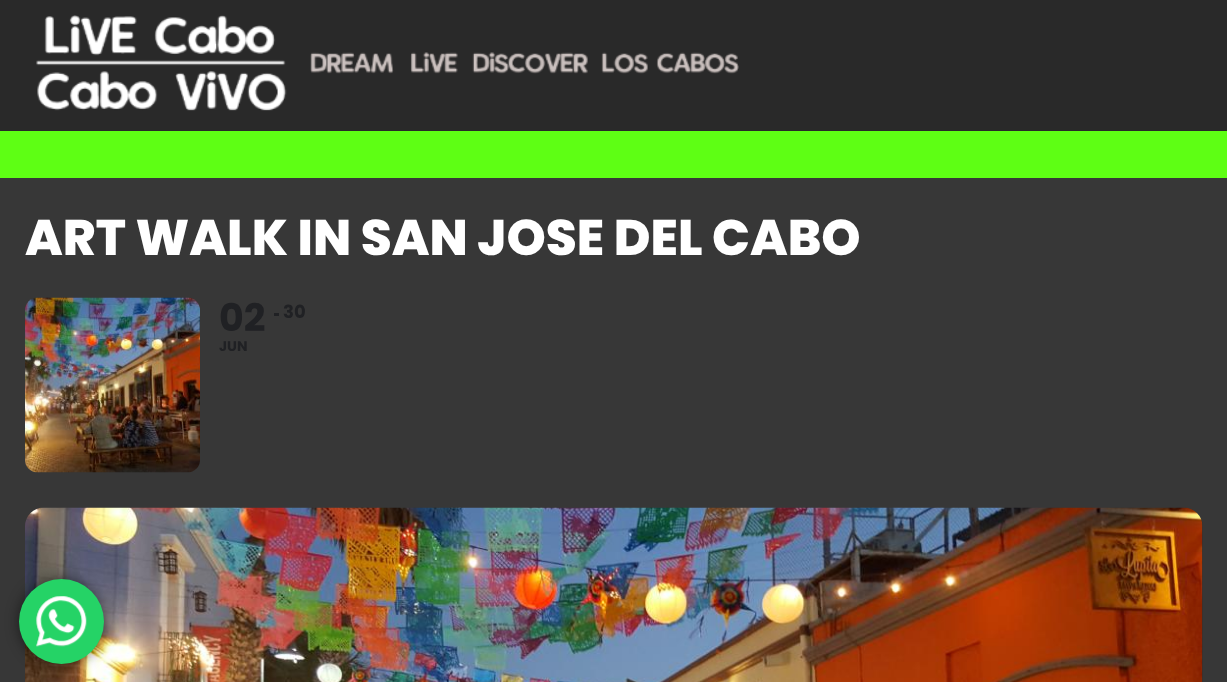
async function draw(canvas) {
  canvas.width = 1227;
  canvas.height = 682;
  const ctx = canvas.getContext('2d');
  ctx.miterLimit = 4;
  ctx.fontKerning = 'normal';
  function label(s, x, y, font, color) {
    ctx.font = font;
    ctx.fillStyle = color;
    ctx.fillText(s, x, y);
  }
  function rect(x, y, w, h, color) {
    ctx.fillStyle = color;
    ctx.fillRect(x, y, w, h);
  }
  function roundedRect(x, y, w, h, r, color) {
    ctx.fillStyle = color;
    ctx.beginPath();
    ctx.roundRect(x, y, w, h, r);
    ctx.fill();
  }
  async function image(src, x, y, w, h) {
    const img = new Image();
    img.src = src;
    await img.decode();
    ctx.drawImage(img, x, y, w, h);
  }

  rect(0, 0, 1227, 682, '#373737');
  rect(0, 0, 1227, 131, '#292929');
  await image('assets/img1.png', 36, 15, 703, 96);
  rect(0, 131, 1227, 47, '#5eff14');
  label('ART WALK IN SAN JOSE DEL CABO', 25, 255, '800 50px Poppins', '#fff');
  await image('assets/img2.png', 25, 297, 175, 176);
  label('02', 219, 331, 'bold 38px Poppins', '#202124');
  label('JUN', 219, 351, 'bold 14px Poppins', '#202124');
  rect(274, 313, 5, 3, '#202124');
  label('30', 283, 318, 'bold 18px Poppins', '#202124');
  roundedRect(25, 508, 1178, 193, 19, '#333');
  await image('assets/img3.png', 25, 507, 1178, 175);
  ctx.fillStyle = '#00000080';
  ctx.filter = 'blur(7px)';
  ctx.beginPath();
  ctx.roundRect(19, 579, 85, 85, 42.5);
  ctx.fill();
  ctx.filter = 'none';
  ctx.fillStyle = '#25d366';
  ctx.beginPath();
  ctx.arc(61.5, 621.5, 42.5, 0, 2 * Math.PI);
  ctx.fill();
  await image('assets/img4.png', 36, 596, 51, 51);
}

draw(document.querySelector('canvas'));
